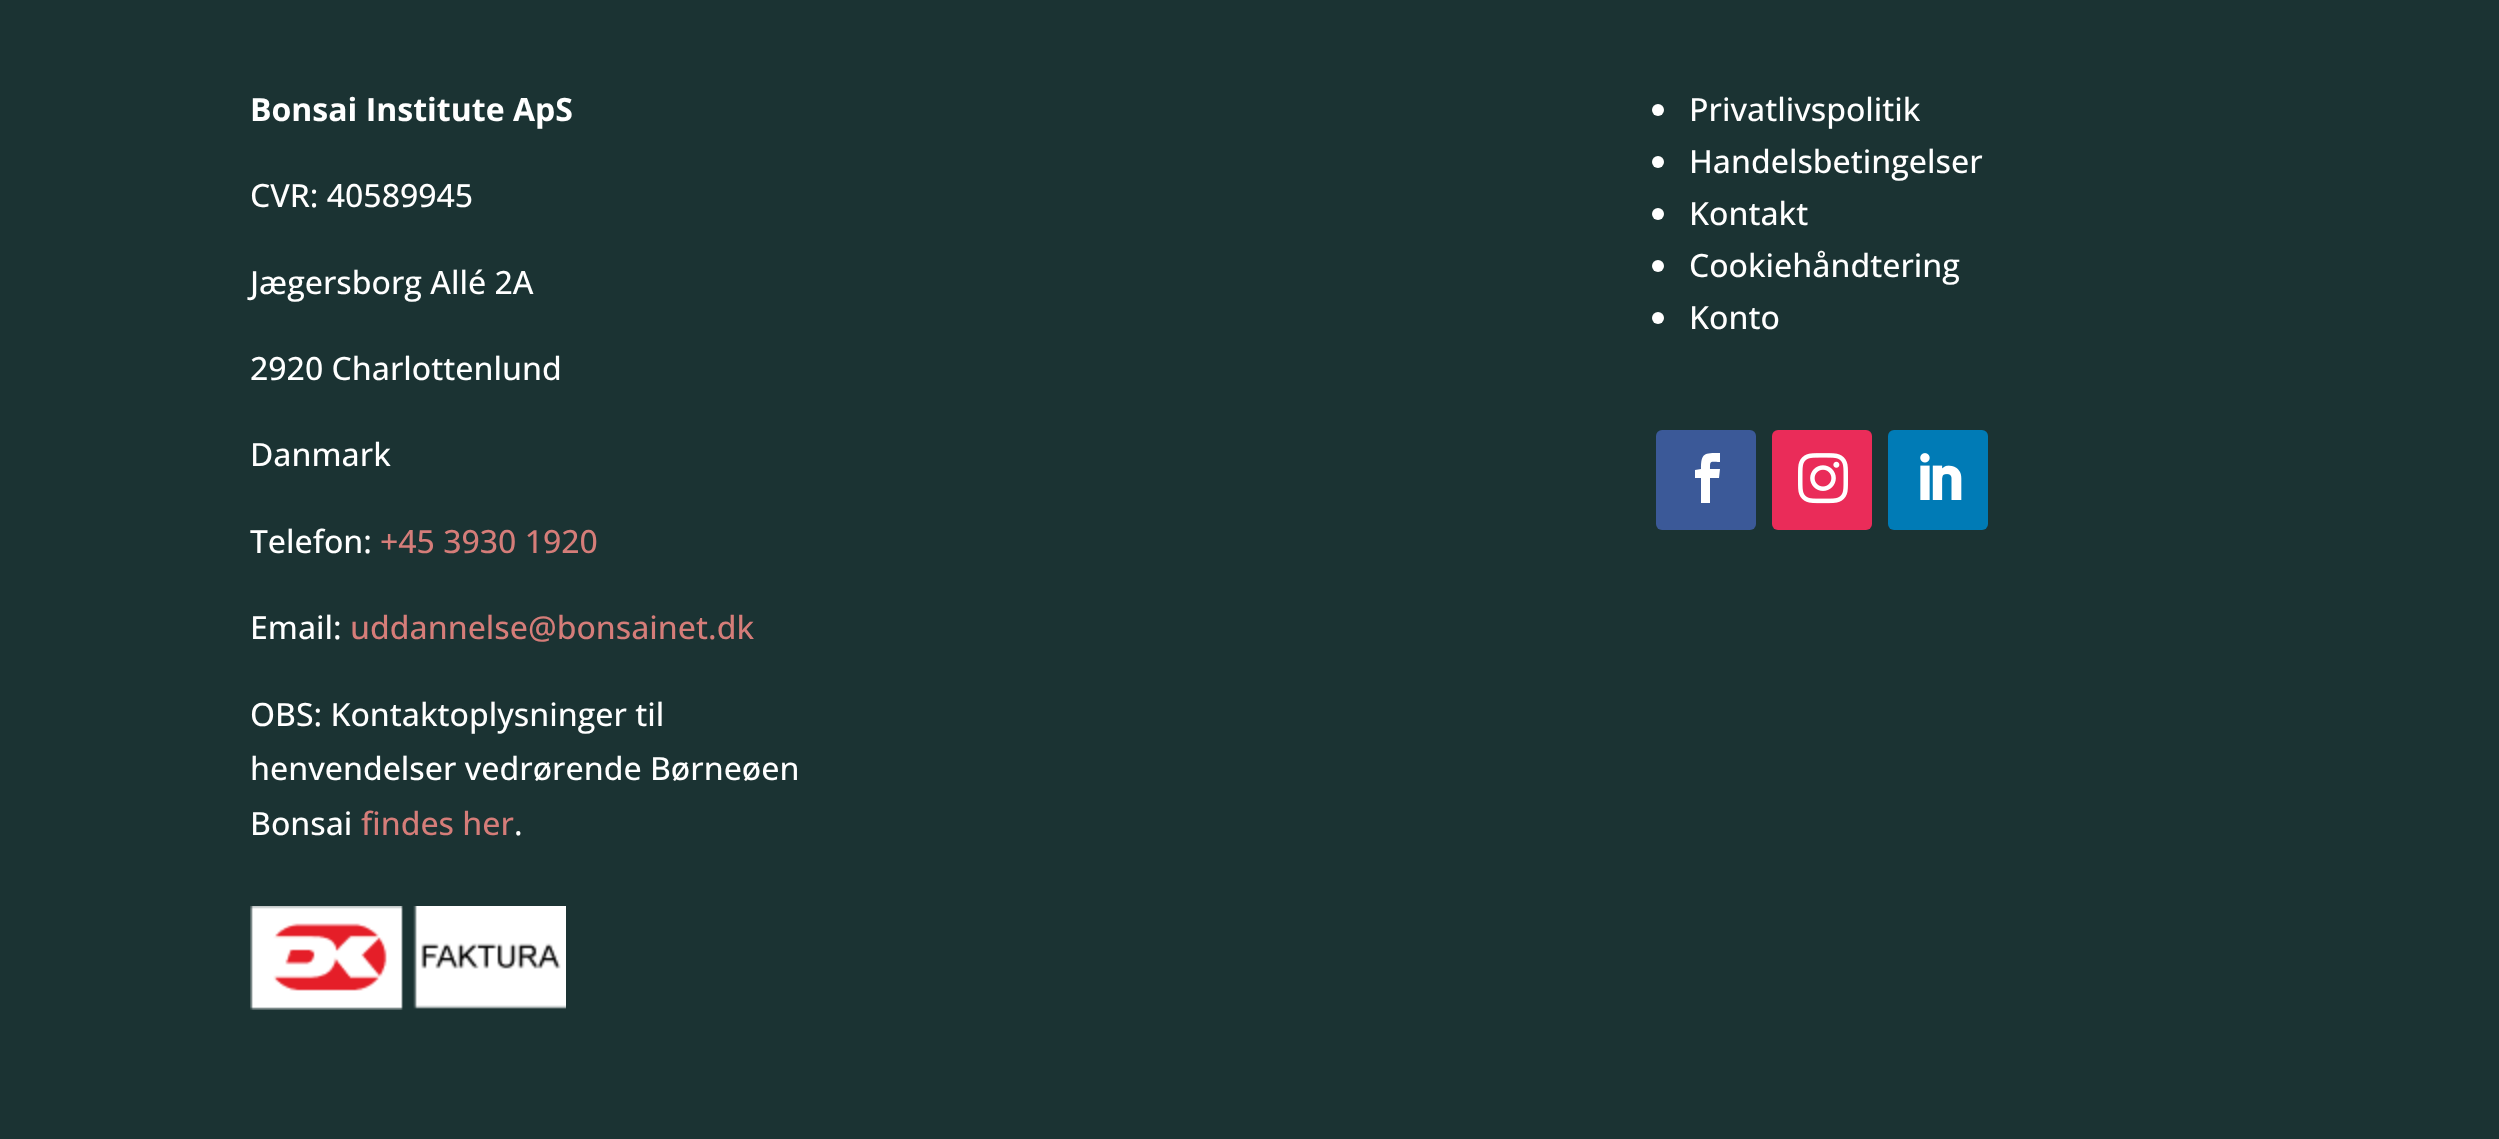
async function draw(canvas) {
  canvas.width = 2499;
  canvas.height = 1139;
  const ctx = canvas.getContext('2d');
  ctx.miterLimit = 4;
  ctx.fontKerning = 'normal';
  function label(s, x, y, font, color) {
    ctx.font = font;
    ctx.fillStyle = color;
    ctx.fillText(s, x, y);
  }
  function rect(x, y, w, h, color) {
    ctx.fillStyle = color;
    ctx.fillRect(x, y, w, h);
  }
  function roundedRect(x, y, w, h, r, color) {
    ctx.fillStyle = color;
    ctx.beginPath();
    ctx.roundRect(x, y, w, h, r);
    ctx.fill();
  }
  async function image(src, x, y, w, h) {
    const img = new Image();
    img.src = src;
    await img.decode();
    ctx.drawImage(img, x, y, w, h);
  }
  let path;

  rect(0, 0, 2499, 1139, '#1b3333');
  label('Bonsai Institute ApS', 250, 121, 'bold 32px Open Sans', '#fff');
  label('CVR: 40589945', 250, 207, '500 32px Open Sans', '#fff');
  label('Jægersborg Allé 2A', 250, 294, '500 32px Open Sans', '#fff');
  label('2920 Charlottenlund', 250, 380, '500 32px Open Sans', '#fff');
  label('Danmark', 250, 466, '500 32px Open Sans', '#fff');
  label('Telefon:', 250, 553, '500 32px Open Sans', '#fff');
  label('+45 3930 1920', 380, 553, '500 32px Open Sans', '#d57d79');
  label('Email:', 250, 639, '500 32px Open Sans', '#fff');
  label('uddannelse@bonsainet.dk', 350, 639, '500 32px Open Sans', '#d57d79');
  label('OBS: Kontaktoplysninger til', 250, 726, '500 32px Open Sans', '#fff');
  label('henvendelser vedrørende Børneøen', 250, 780, '500 32px Open Sans', '#fff');
  label('Bonsai', 250, 835, '500 32px Open Sans', '#fff');
  label('findes her', 361, 835, '500 32px Open Sans', '#d57d79');
  label('.', 514, 835, '500 32px Open Sans', '#fff');
  await image('assets/img1.png', 250, 906, 316, 104);
  ctx.beginPath();
  ctx.arc(1658, 110, 6, 0, 2 * Math.PI);
  ctx.fill();
  label('Privatlivspolitik', 1689, 121, '500 32px Open Sans', '#fff');
  ctx.beginPath();
  ctx.arc(1658, 162, 6, 0, 2 * Math.PI);
  ctx.fill();
  label('Handelsbetingelser', 1689, 173, '500 32px Open Sans', '#fff');
  ctx.beginPath();
  ctx.arc(1658, 214, 6, 0, 2 * Math.PI);
  ctx.fill();
  label('Kontakt', 1689, 225, '500 32px Open Sans', '#fff');
  ctx.beginPath();
  ctx.arc(1658, 266, 6, 0, 2 * Math.PI);
  ctx.fill();
  label('Cookiehåndtering', 1689, 277, '500 32px Open Sans', '#fff');
  ctx.beginPath();
  ctx.arc(1658, 318, 6, 0, 2 * Math.PI);
  ctx.fill();
  label('Konto', 1689, 329, '500 32px Open Sans', '#fff');
  roundedRect(1656, 430, 100, 100, 6, '#3b5998');
  ctx.fillStyle = '#fff';
  path = new Path2D('M1701 503H1710V478H1719L1720 469H1710C1710 460 1710 462 1720 462V453C1704 453 1701 453 1701 469L1695 470V478H1701Z');
  ctx.fill(path);
  roundedRect(1772, 430, 100, 100, 6, '#ea2c59');
  await image('assets/img2.png', 1798, 453, 50, 51);
  roundedRect(1888, 430, 100, 100, 6, '#007bb6');
  await image('assets/img3.png', 1920, 453, 42, 47);
}

draw(document.querySelector('canvas'));
